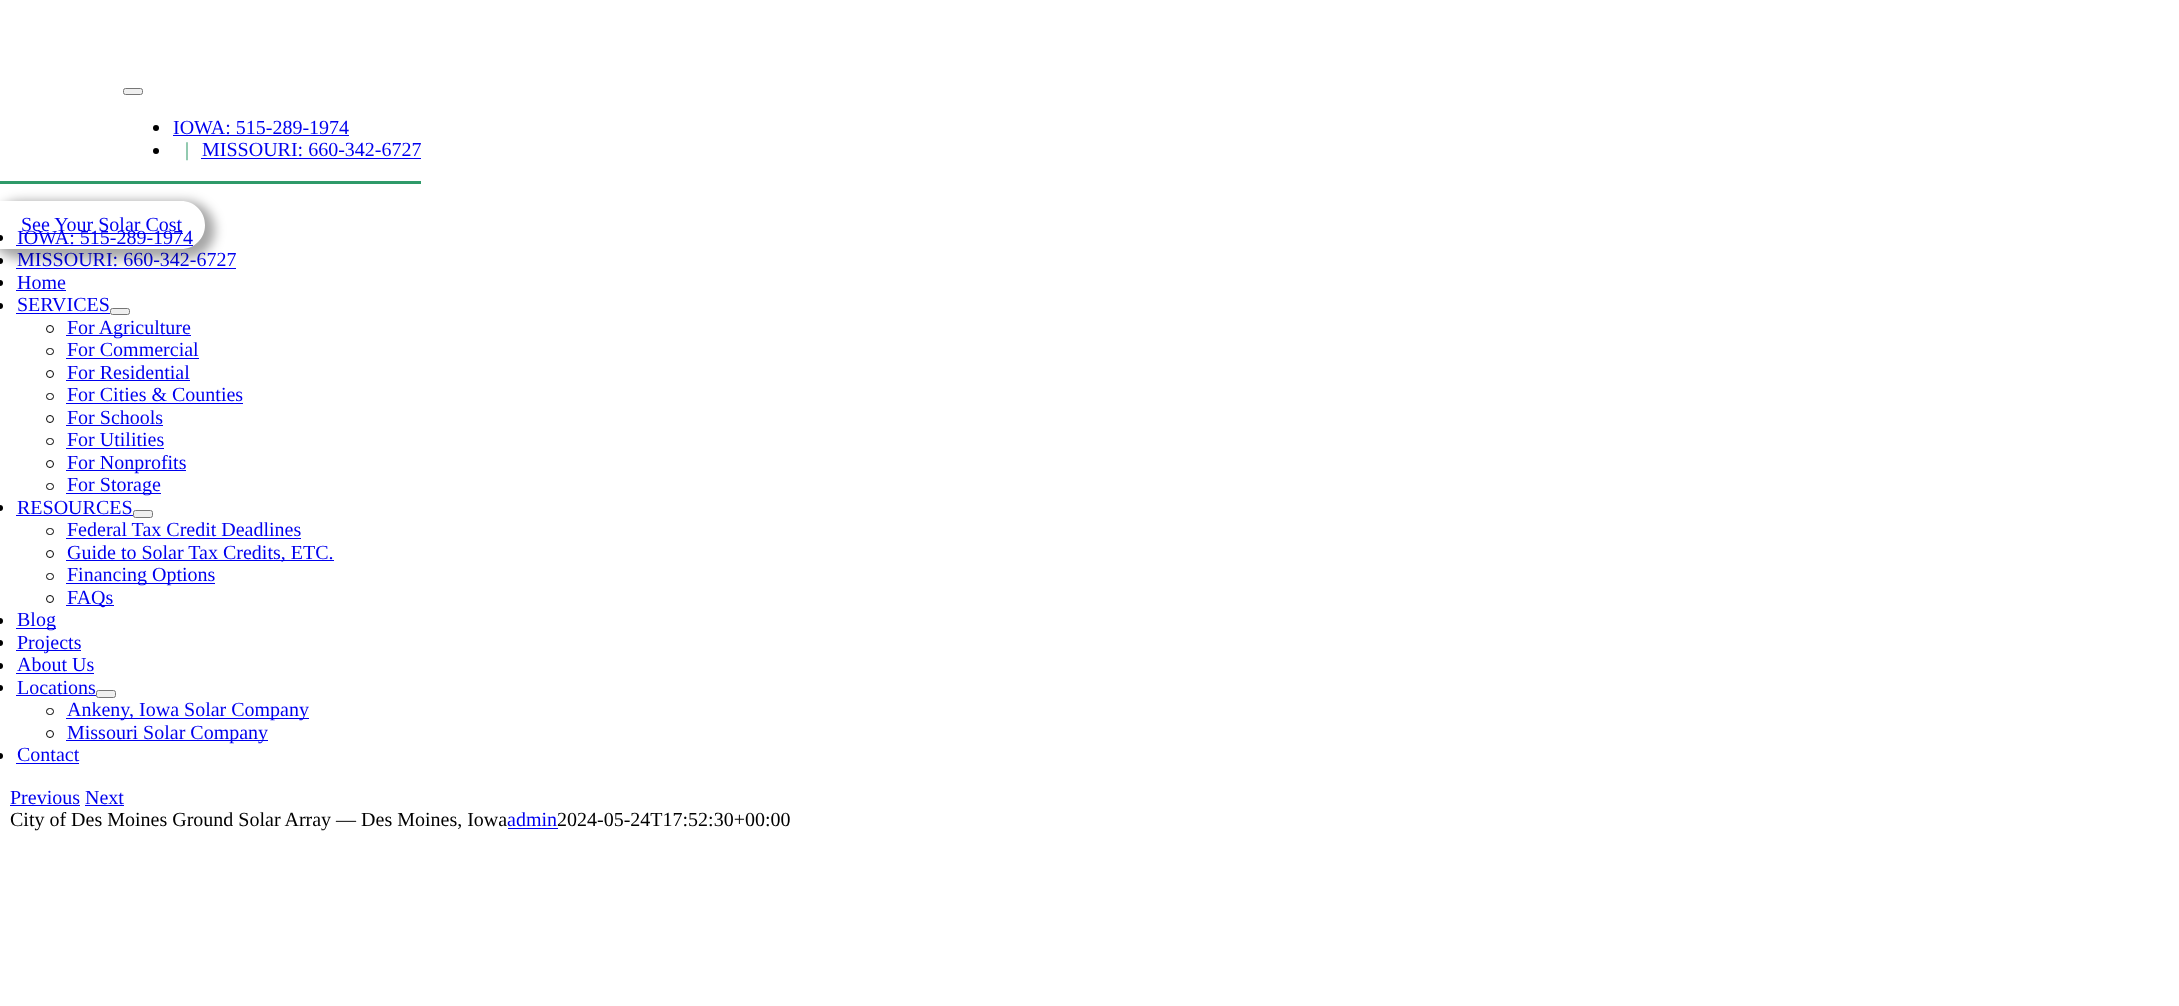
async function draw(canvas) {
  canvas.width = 2179;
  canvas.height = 1006;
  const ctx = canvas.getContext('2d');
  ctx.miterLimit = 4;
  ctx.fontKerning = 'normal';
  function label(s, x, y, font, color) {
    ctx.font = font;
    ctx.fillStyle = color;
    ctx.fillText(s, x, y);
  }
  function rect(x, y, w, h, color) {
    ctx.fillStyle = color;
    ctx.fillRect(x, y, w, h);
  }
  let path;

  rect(0, 0, 2179, 1006, '#fff');
  rect(0, 181, 421, 3, '#2e9a69');
  ctx.fillStyle = '#efefef';
  ctx.beginPath();
  ctx.roundRect(123.5, 88.5, 19, 6, 2);
  ctx.fill();
  ctx.strokeStyle = '#767676';
  ctx.stroke();
  ctx.fillStyle = '#000';
  ctx.beginPath();
  ctx.arc(156, 128, 3, 0, 2 * Math.PI);
  ctx.fill();
  label('IOWA: 515-289-1974', 173, 134, '20px Liberation Serif', '#00e');
  rect(173, 135, 176, 1, '#00e');
  ctx.fillStyle = '#000';
  ctx.beginPath();
  ctx.arc(156, 151, 3, 0, 2 * Math.PI);
  ctx.fill();
  label('|', 185, 156, '20px Liberation Serif', '#2e9a68');
  label('MISSOURI: 660-342-6727', 202, 156, '20px Liberation Serif', '#00e');
  rect(201, 158, 220, 1, '#00e');
  ctx.fillStyle = '#000';
  ctx.beginPath();
  ctx.arc(0, 238, 3, 0, 2 * Math.PI);
  ctx.fill();
  label('IOWA: 515-289-1974', 17, 244, '20px Liberation Serif', '#00e');
  rect(16, 245, 177, 1, '#00e');
  ctx.fillStyle = '#000';
  ctx.beginPath();
  ctx.arc(0, 261, 3, 0, 2 * Math.PI);
  ctx.fill();
  label('MISSOURI: 660-342-6727', 17, 266, '20px Liberation Serif', '#00e');
  rect(16, 268, 220, 1, '#00e');
  ctx.fillStyle = '#000';
  ctx.beginPath();
  ctx.arc(0, 283, 3, 0, 2 * Math.PI);
  ctx.fill();
  label('Home', 17, 289, '20px Liberation Serif', '#00e');
  rect(16, 290, 50, 1, '#00e');
  ctx.fillStyle = '#000';
  ctx.beginPath();
  ctx.arc(0, 306, 3, 0, 2 * Math.PI);
  ctx.fill();
  label('SERVICES', 17, 311, '20px Liberation Serif', '#00e');
  rect(16, 313, 94, 1, '#00e');
  ctx.fillStyle = '#efefef';
  ctx.beginPath();
  ctx.roundRect(110.5, 308.5, 19, 6, 2);
  ctx.fill();
  ctx.stroke();
  ctx.beginPath();
  ctx.arc(50, 329, 3.5, 0, 2 * Math.PI);
  ctx.strokeStyle = '#000';
  ctx.stroke();
  rect(66, 335, 125, 1, '#00e');
  label('For Agriculture', 67, 334, '20px Liberation Serif', '#00e');
  ctx.beginPath();
  ctx.roundRect(46.5, 348.5, 7, 6, 3);
  ctx.stroke();
  label('For Commercial', 67, 356, '20px Liberation Serif', '#00e');
  rect(66, 358, 133, 1, '#00e');
  ctx.beginPath();
  ctx.arc(50, 374, 3.5, 0, 2 * Math.PI);
  ctx.stroke();
  label('For Residential', 67, 379, '20px Liberation Serif', '#00e');
  rect(66, 380, 124, 1, '#00e');
  ctx.beginPath();
  ctx.roundRect(46.5, 393.5, 7, 6, 3);
  ctx.stroke();
  label('For Cities & Counties', 67, 401, '20px Liberation Serif', '#00e');
  rect(66, 403, 177, 1, '#00e');
  ctx.beginPath();
  ctx.arc(50, 419, 3.5, 0, 2 * Math.PI);
  ctx.stroke();
  label('For Schools', 67, 424, '20px Liberation Serif', '#00e');
  rect(66, 425, 97, 1, '#00e');
  ctx.beginPath();
  ctx.roundRect(46.5, 438.5, 7, 6, 3);
  ctx.stroke();
  label('For Utilities', 67, 446, '20px Liberation Serif', '#00e');
  rect(66, 448, 98, 1, '#00e');
  ctx.beginPath();
  ctx.arc(50, 464, 3.5, 0, 2 * Math.PI);
  ctx.stroke();
  rect(66, 470, 120, 1, '#00e');
  label('For Nonprofits', 67, 469, '20px Liberation Serif', '#00e');
  ctx.beginPath();
  ctx.roundRect(46.5, 483.5, 7, 6, 3);
  ctx.stroke();
  rect(66, 493, 95, 1, '#00e');
  label('For Storage', 67, 491, '20px Liberation Serif', '#00e');
  ctx.fillStyle = '#000';
  ctx.beginPath();
  ctx.arc(0, 508, 3, 0, 2 * Math.PI);
  ctx.fill();
  label('RESOURCES', 17, 514, '20px Liberation Serif', '#00e');
  rect(16, 515, 117, 1, '#00e');
  ctx.fillStyle = '#efefef';
  ctx.beginPath();
  ctx.roundRect(133.5, 510.5, 19, 7, 2);
  ctx.fill();
  ctx.strokeStyle = '#767676';
  ctx.stroke();
  ctx.beginPath();
  ctx.roundRect(46.5, 528.5, 7, 6, 3);
  ctx.strokeStyle = '#000';
  ctx.stroke();
  label('Federal Tax Credit Deadlines', 67, 536, '20px Liberation Serif', '#00e');
  rect(66, 538, 235, 1, '#00e');
  ctx.beginPath();
  ctx.arc(50, 554, 3.5, 0, 2 * Math.PI);
  ctx.stroke();
  rect(66, 560, 268, 1, '#00e');
  label('Guide to Solar Tax Credits, ETC.', 67, 559, '20px Liberation Serif', '#00e');
  ctx.beginPath();
  ctx.roundRect(46.5, 573.5, 7, 6, 3);
  ctx.stroke();
  rect(66, 583, 149, 1, '#00e');
  label('Financing Options', 67, 581, '20px Liberation Serif', '#00e');
  ctx.beginPath();
  ctx.arc(50, 599, 3.5, 0, 2 * Math.PI);
  ctx.stroke();
  rect(66, 605, 48, 1, '#00e');
  label('FAQs', 67, 604, '20px Liberation Serif', '#00e');
  ctx.fillStyle = '#000';
  ctx.beginPath();
  ctx.arc(0, 621, 3, 0, 2 * Math.PI);
  ctx.fill();
  rect(16, 628, 40, 1, '#00e');
  label('Blog', 17, 626, '20px Liberation Serif', '#00e');
  ctx.fillStyle = '#000';
  ctx.beginPath();
  ctx.arc(0, 643, 3, 0, 2 * Math.PI);
  ctx.fill();
  rect(16, 650, 65, 1, '#00e');
  label('Projects', 17, 649, '20px Liberation Serif', '#00e');
  ctx.fillStyle = '#000';
  ctx.beginPath();
  ctx.arc(0, 666, 3, 0, 2 * Math.PI);
  ctx.fill();
  label('About Us', 17, 671, '20px Liberation Serif', '#00e');
  rect(16, 673, 78, 1, '#00e');
  ctx.fillStyle = '#000';
  ctx.beginPath();
  ctx.arc(0, 688, 3, 0, 2 * Math.PI);
  ctx.fill();
  label('Locations', 17, 694, '20px Liberation Serif', '#00e');
  rect(16, 695, 80, 1, '#00e');
  ctx.fillStyle = '#efefef';
  ctx.beginPath();
  ctx.roundRect(96.5, 690.5, 19, 7, 2);
  ctx.fill();
  ctx.strokeStyle = '#767676';
  ctx.stroke();
  ctx.beginPath();
  ctx.roundRect(46.5, 708.5, 7, 6, 3);
  ctx.strokeStyle = '#000';
  ctx.stroke();
  rect(66, 718, 243, 1, '#00e');
  label('Ankeny, Iowa Solar Company', 67, 716, '20px Liberation Serif', '#00e');
  ctx.beginPath();
  ctx.arc(50, 734, 3.5, 0, 2 * Math.PI);
  ctx.stroke();
  rect(66, 740, 202, 1, '#00e');
  label('Missouri Solar Company', 67, 739, '20px Liberation Serif', '#00e');
  ctx.fillStyle = '#000';
  ctx.beginPath();
  ctx.arc(0, 756, 3, 0, 2 * Math.PI);
  ctx.fill();
  label('Contact', 17, 761, '20px Liberation Serif', '#00e');
  rect(16, 763, 63, 1, '#00e');
  ctx.save();
  path = new Path2D('M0 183H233V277H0ZM-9 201H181C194.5 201 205 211.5 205 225C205 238.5 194.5 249 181 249H-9Z');
  ctx.clip(path, 'evenodd');
  ctx.fillStyle = '#00000059';
  ctx.filter = 'blur(5.5px)';
  ctx.beginPath();
  ctx.roundRect(-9, 201, 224, 58, 29);
  ctx.fill();
  ctx.filter = 'none';
  ctx.restore();
  label('See Your Solar Cost', 21, 231, '20px Liberation Serif', '#00e');
  rect(21, 233, 162, 1, '#00e');
  label('Previous Next', 10, 804, '20px Liberation Serif', '#00e');
  rect(10, 805, 70, 1, '#00e');
  rect(85, 805, 39, 1, '#00e');
  label('City of Des Moines Ground Solar Array — Des Moines, Iowa', 10, 826, '20px Liberation Serif', '#000');
  label('admin', 507, 826, '20px Liberation Serif', '#00e');
  rect(508, 828, 50, 1, '#00e');
  label('2024-05-24T17:52:30+00:00', 557, 826, '20px Liberation Serif', '#000');
}

draw(document.querySelector('canvas'));
